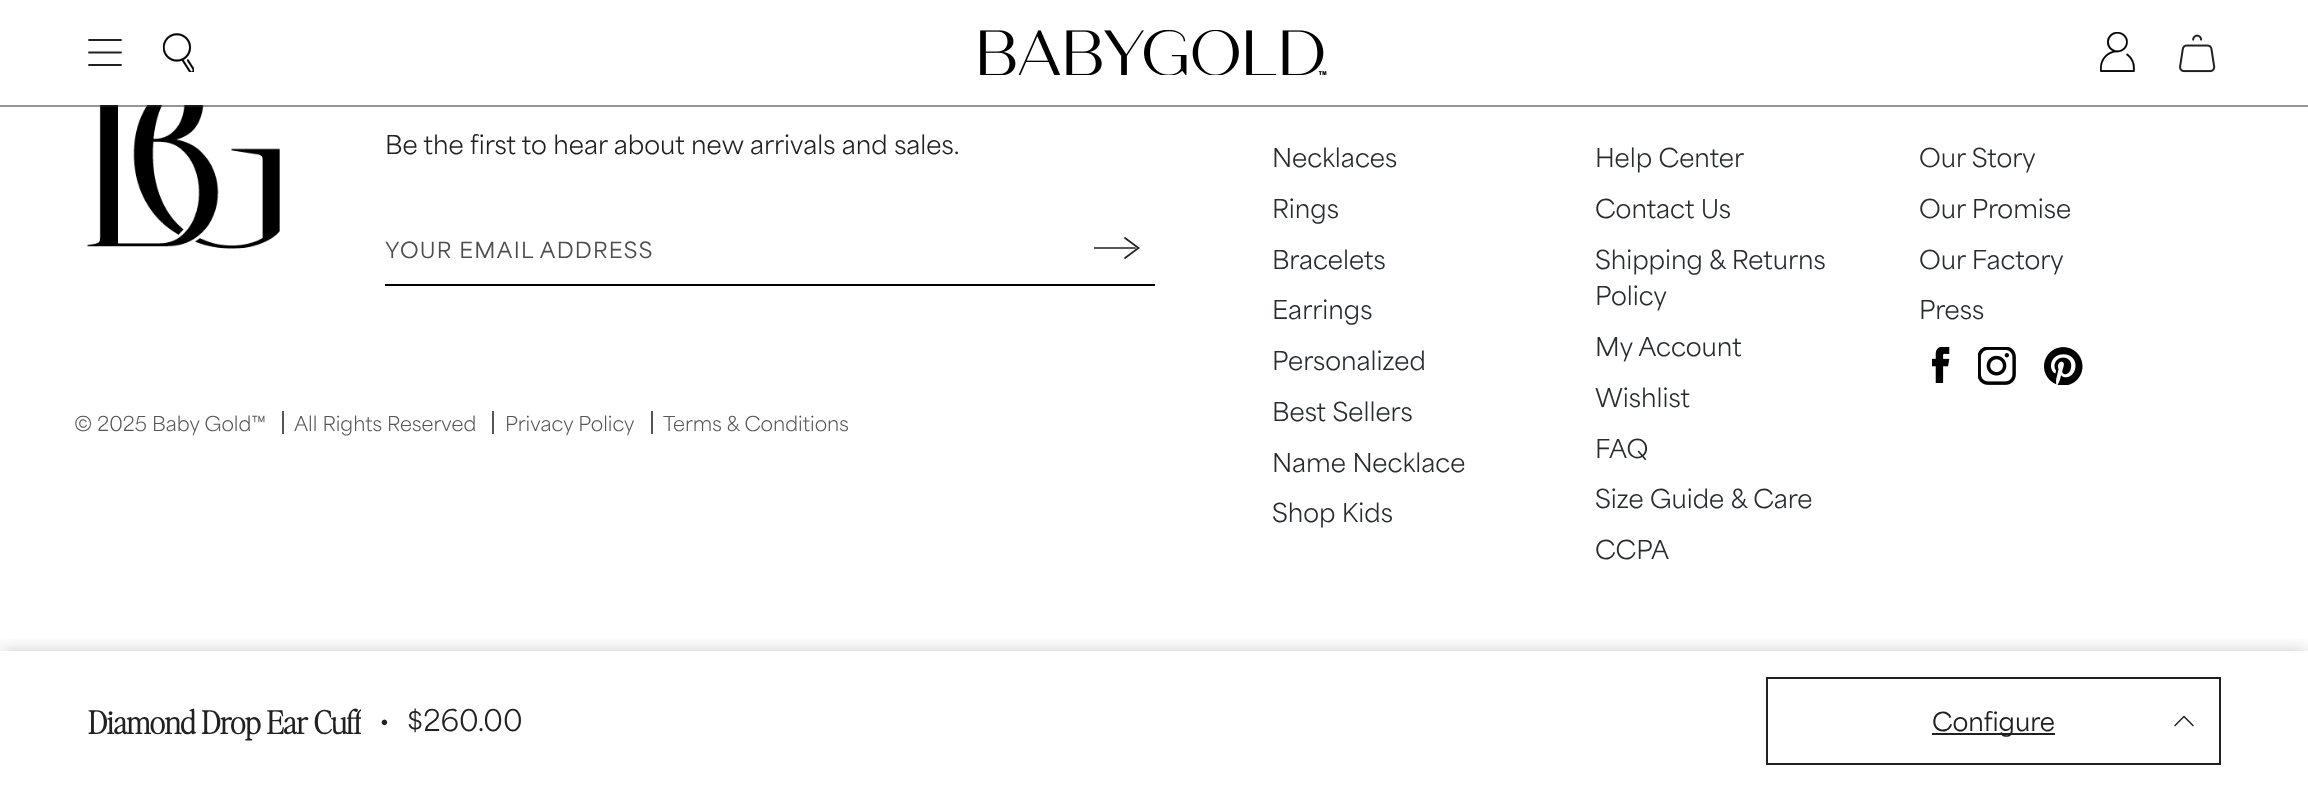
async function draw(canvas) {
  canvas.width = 2308;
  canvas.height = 791;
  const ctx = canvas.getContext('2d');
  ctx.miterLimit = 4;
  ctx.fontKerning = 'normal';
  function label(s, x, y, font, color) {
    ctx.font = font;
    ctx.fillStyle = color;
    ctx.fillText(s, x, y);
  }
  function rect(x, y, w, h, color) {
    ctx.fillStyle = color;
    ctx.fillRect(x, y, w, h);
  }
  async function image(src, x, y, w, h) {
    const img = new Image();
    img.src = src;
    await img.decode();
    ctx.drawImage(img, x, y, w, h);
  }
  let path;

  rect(0, 0, 2308, 791, '#fff');
  label('Be the first to hear about new arrivals and sales.', 385, 154, '24.5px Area', '#212121');
  rect(385, 284, 770, 2, '#000');
  ctx.letterSpacing = '1.25px';
  label('YOUR EMAIL ADDRESS', 385, 258, '500 21px Area', '#4d4d4d');
  ctx.save();
  path = new Path2D('M1094 259.5V236.5H1140.5V259.5Z');
  ctx.clip(path);
  path = new Path2D('M1135 248H1094.5');
  ctx.strokeStyle = '#212121';
  ctx.lineWidth = 1.7;
  ctx.lineCap = 'round';
  ctx.stroke(path);
  ctx.restore();
  path = new Path2D('M1125 238L1138.5 248L1125 258');
  ctx.strokeStyle = '#212121';
  ctx.lineWidth = 1.7;
  ctx.lineCap = 'round';
  ctx.stroke(path);
  await image('assets/img1.png', 87, 105, 193, 144);
  ctx.letterSpacing = '0px';
  label('© 2025 Baby Gold™', 74, 431, '300 19.25px Area', '#555');
  rect(282, 411, 2, 23, '#555');
  label('All Rights Reserved', 294, 431, '300 19.25px Area', '#555');
  rect(492, 411, 2, 23, '#555');
  label('Privacy Policy', 505, 431, '300 19.25px Area', '#555');
  rect(651, 411, 2, 23, '#555');
  label('Terms & Conditions', 663, 431, '300 19.25px Area', '#555');
  label('Necklaces', 1272, 167, '24.5px Area', '#282c2e');
  label('Rings', 1272, 218, '24.5px Area', '#282c2e');
  label('Bracelets', 1272, 269, '24.5px Area', '#282c2e');
  label('Earrings', 1272, 319, '24.5px Area', '#282c2e');
  label('Personalized', 1272, 370, '24.5px Area', '#282c2e');
  label('Best Sellers', 1272, 421, '24.5px Area', '#282c2e');
  label('Name Necklace', 1272, 472, '24.5px Area', '#282c2e');
  label('Shop Kids', 1272, 522, '24.5px Area', '#282c2e');
  label('Help Center', 1595, 167, '24.5px Area', '#282c2e');
  label('Contact Us', 1595, 218, '24.5px Area', '#282c2e');
  label('Shipping & Returns', 1595, 269, '24.5px Area', '#282c2e');
  label('Policy', 1595, 305, '24.5px Area', '#282c2e');
  label('My Account', 1595, 356, '24.5px Area', '#282c2e');
  label('Wishlist', 1595, 407, '24.5px Area', '#282c2e');
  label('FAQ', 1595, 458, '24.5px Area', '#282c2e');
  label('Size Guide & Care', 1595, 508, '24.5px Area', '#282c2e');
  label('CCPA', 1595, 559, '24.5px Area', '#282c2e');
  label('Our Story', 1919, 167, '24.5px Area', '#282c2e');
  label('Our Promise', 1919, 218, '24.5px Area', '#282c2e');
  label('Our Factory', 1919, 269, '24.5px Area', '#282c2e');
  label('Press', 1919, 319, '24.5px Area', '#282c2e');
  await image('assets/img2.png', 1932, 347, 18, 36);
  await image('assets/img3.png', 1978, 347, 38, 38);
  await image('assets/img4.png', 2044, 347, 39, 38);
  path = new Path2D('M89 40H121M89 52.5H121M89 65H121');
  ctx.lineWidth = 1.8;
  ctx.lineJoin = 'round';
  ctx.stroke(path);
  await image('assets/img5.png', 163, 33, 31, 39);
  await image('assets/img6.png', 980, 30, 347, 45);
  await image('assets/img7.png', 2100, 32, 35, 40);
  await image('assets/img8.png', 2179, 34, 37, 39);
  rect(0, 105, 2308, 2, '#282c2e80');
  ctx.save();
  ctx.beginPath();
  ctx.rect(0, 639, 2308, 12);
  ctx.clip();
  ctx.fillStyle = '#00000033';
  ctx.filter = 'blur(9px)';
  ctx.beginPath();
  ctx.rect(0, 651, 2308, 140);
  ctx.fill();
  ctx.filter = 'none';
  ctx.restore();
  ctx.save();
  ctx.beginPath();
  ctx.rect(88, 700, 273, 44);
  ctx.clip();
  label('Diamond Drop Ear Cuff', 88, 734, 'bold 31.5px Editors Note', '#212121');
  ctx.restore();
  label('•', 379, 731, '28px Area', '#212121');
  label('$260.00', 407, 731, '28px Area', '#212121');
  ctx.lineWidth = 2;
  ctx.lineJoin = 'miter';
  ctx.strokeRect(1767, 678, 453, 86);
  rect(1932, 733, 123, 2, '#212121');
  label('Configure', 1932, 731, '500 24.5px Area', '#212121');
  path = new Path2D('M2175 725.5L2184 716.5L2193 725.5');
  ctx.lineWidth = 1.5;
  ctx.lineJoin = 'round';
  ctx.stroke(path);
}

draw(document.querySelector('canvas'));
